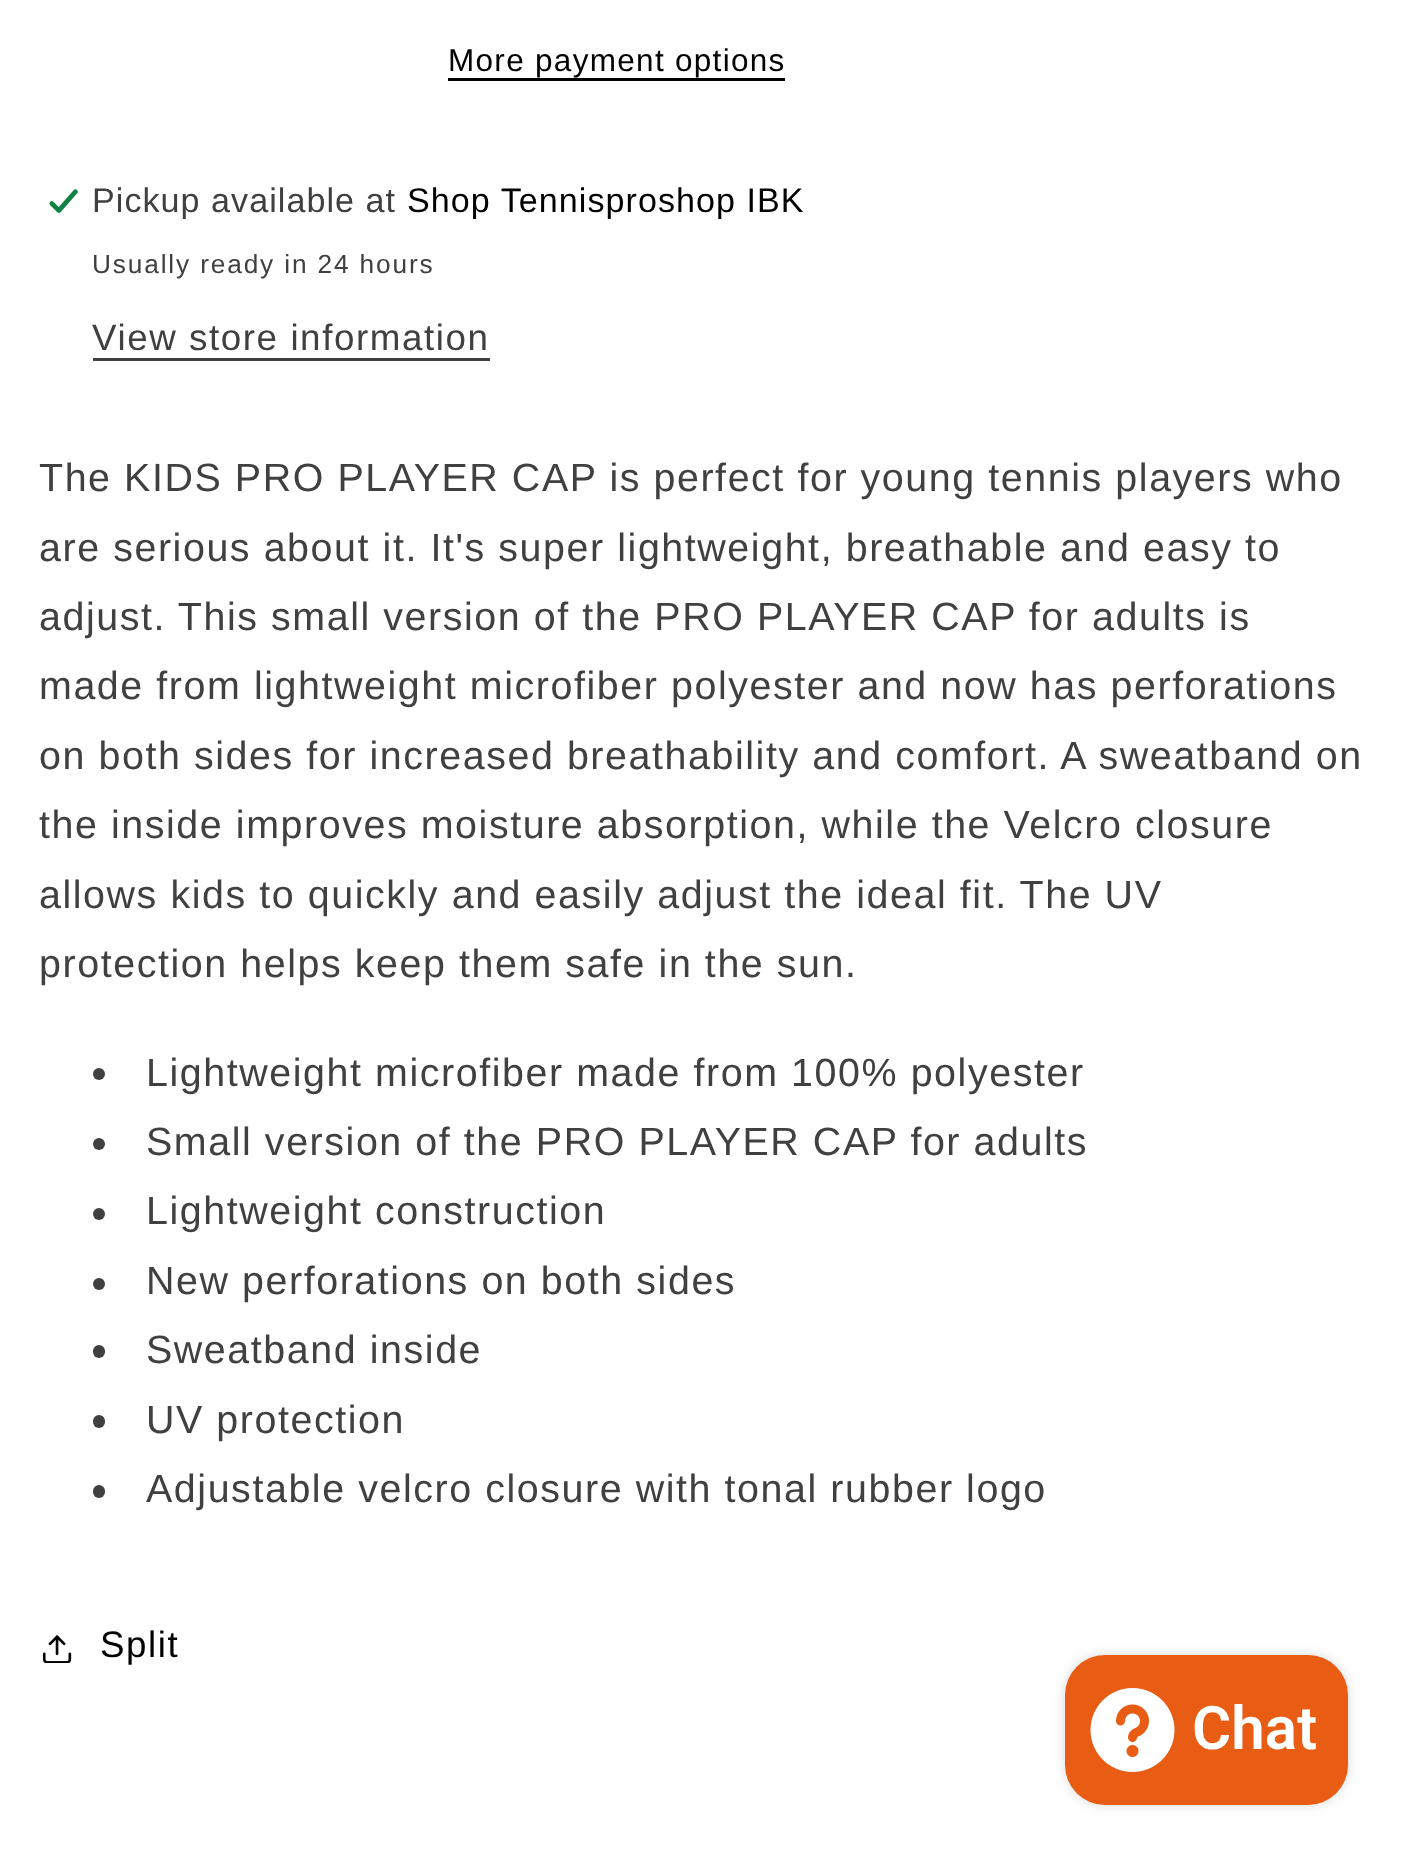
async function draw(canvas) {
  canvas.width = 1401;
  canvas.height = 1856;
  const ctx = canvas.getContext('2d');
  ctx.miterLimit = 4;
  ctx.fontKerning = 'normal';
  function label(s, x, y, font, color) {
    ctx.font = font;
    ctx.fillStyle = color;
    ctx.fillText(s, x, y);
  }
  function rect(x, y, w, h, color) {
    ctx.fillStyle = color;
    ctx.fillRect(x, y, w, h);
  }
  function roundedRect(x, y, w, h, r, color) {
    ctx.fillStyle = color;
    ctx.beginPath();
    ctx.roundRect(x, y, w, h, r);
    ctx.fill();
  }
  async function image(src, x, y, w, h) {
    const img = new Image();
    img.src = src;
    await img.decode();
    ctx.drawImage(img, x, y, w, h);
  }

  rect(0, 0, 1401, 1856, '#fff');
  ctx.letterSpacing = '1.3px';
  label('More payment options', 448, 71, '31.5px Liberation Sans', '#000');
  rect(448, 78, 337, 3, '#000');
  await image('assets/img1.png', 49, 189, 29, 24);
  ctx.letterSpacing = '1.05px';
  label('Pickup available at', 92, 212, '34.1px Liberation Sans', '#404040');
  label('Shop Tennisproshop IBK', 407, 212, '34.1px Liberation Sans', '#000');
  ctx.letterSpacing = '1.85px';
  label('Usually ready in 24 hours', 92, 273, '26.25px Liberation Sans', '#404040');
  ctx.letterSpacing = '1.57px';
  label('View store information', 92, 350, '36.75px Liberation Sans', '#404040');
  rect(93, 358, 397, 3, '#404040');
  label('The KIDS PRO PLAYER CAP is perfect for young tennis players who', 39, 491, '39.4px Liberation Sans', '#404040');
  label('are serious about it. It\'s super lightweight, breathable and easy to', 39, 561, '39.4px Liberation Sans', '#404040');
  label('adjust. This small version of the PRO PLAYER CAP for adults is', 39, 630, '39.4px Liberation Sans', '#404040');
  label('made from lightweight microfiber polyester and now has perforations', 39, 699, '39.4px Liberation Sans', '#404040');
  label('on both sides for increased breathability and comfort. A sweatband on', 39, 769, '39.4px Liberation Sans', '#404040');
  label('the inside improves moisture absorption, while the Velcro closure', 39, 838, '39.4px Liberation Sans', '#404040');
  label('allows kids to quickly and easily adjust the ideal fit. The UV', 39, 908, '39.4px Liberation Sans', '#404040');
  label('protection helps keep them safe in the sun.', 39, 977, '39.4px Liberation Sans', '#404040');
  ctx.beginPath();
  ctx.arc(99, 1074, 6, 0, 2 * Math.PI);
  ctx.fill();
  label('Lightweight microfiber made from 100% polyester', 146, 1086, '39.4px Liberation Sans', '#404040');
  ctx.beginPath();
  ctx.arc(99, 1144, 6, 0, 2 * Math.PI);
  ctx.fill();
  label('Small version of the PRO PLAYER CAP for adults', 146, 1155, '39.4px Liberation Sans', '#404040');
  ctx.beginPath();
  ctx.arc(99, 1214, 6, 0, 2 * Math.PI);
  ctx.fill();
  label('Lightweight construction', 146, 1224, '39.4px Liberation Sans', '#404040');
  ctx.beginPath();
  ctx.arc(99, 1284, 6, 0, 2 * Math.PI);
  ctx.fill();
  label('New perforations on both sides', 146, 1294, '39.4px Liberation Sans', '#404040');
  roundedRect(93, 1345, 12, 13, 6, '#404040');
  label('Sweatband inside', 146, 1363, '39.4px Liberation Sans', '#404040');
  roundedRect(93, 1415, 12, 13, 6, '#404040');
  label('UV protection', 146, 1433, '39.4px Liberation Sans', '#404040');
  roundedRect(93, 1485, 12, 13, 6, '#404040');
  label('Adjustable velcro closure with tonal rubber logo', 146, 1502, '39.4px Liberation Sans', '#404040');
  await image('assets/img2.png', 42, 1635, 30, 28);
  label('Split', 100, 1657, '36.75px Liberation Sans', '#000');
  ctx.fillStyle = '#00000026';
  ctx.filter = 'blur(6px)';
  ctx.beginPath();
  ctx.roundRect(1065, 1655, 283, 150, 40);
  ctx.fill();
  ctx.filter = 'none';
  roundedRect(1065, 1655, 283, 150, 40, '#e95c13');
  await image('assets/img3.png', 1090, 1688, 85, 84);
  ctx.letterSpacing = '0px';
  label('Chat', 1192, 1749, '600 60px Roboto', '#fff');
}

draw(document.querySelector('canvas'));
